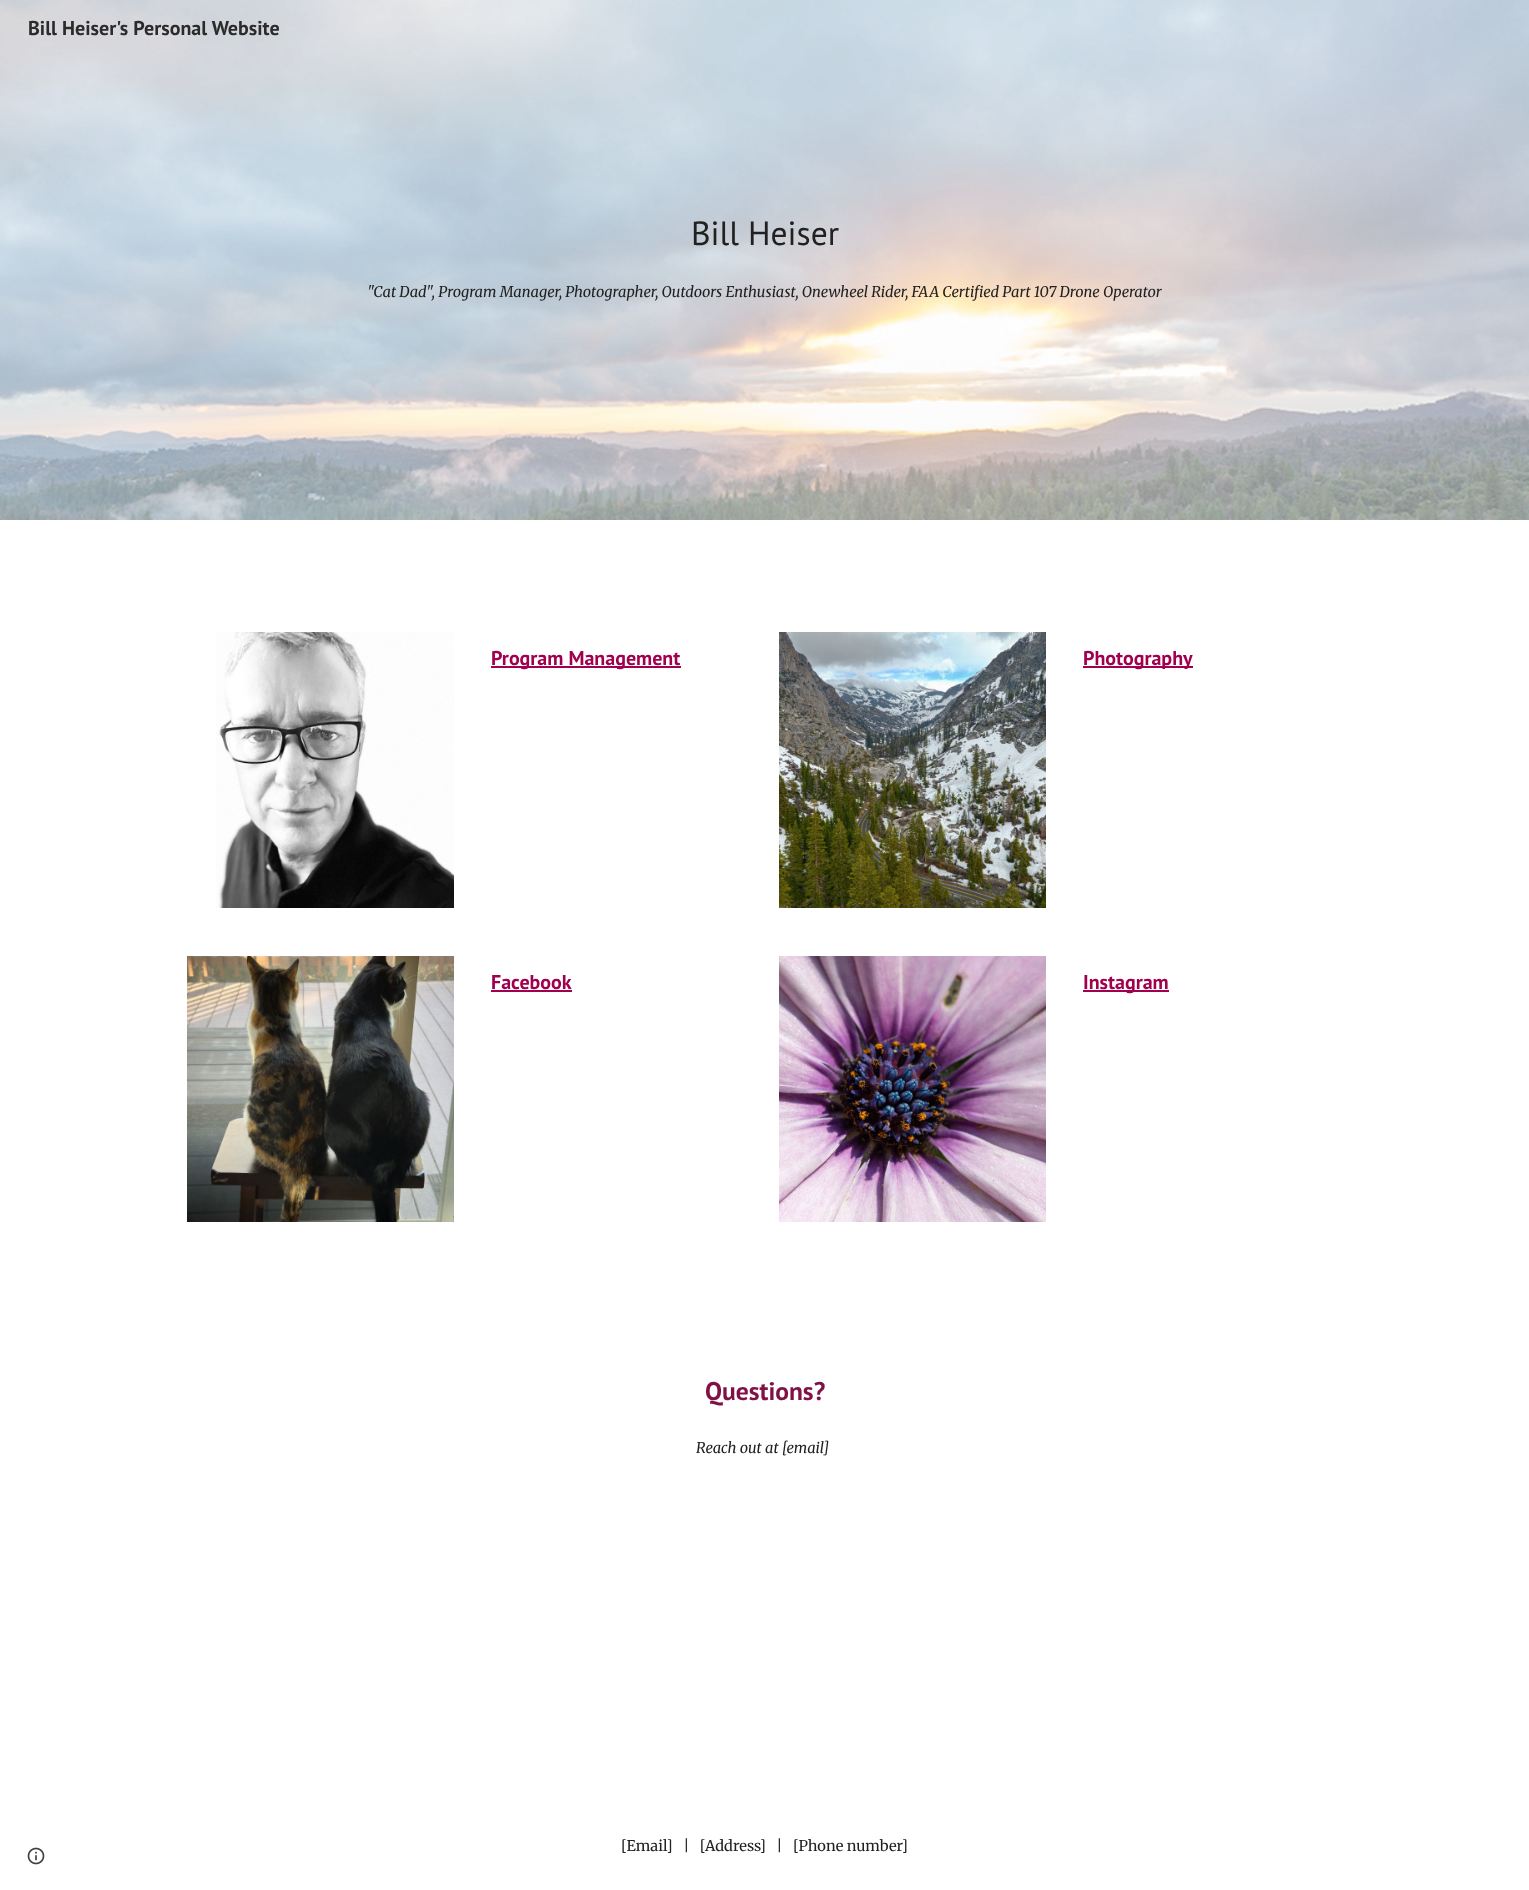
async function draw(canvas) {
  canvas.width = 1529;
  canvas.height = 1890;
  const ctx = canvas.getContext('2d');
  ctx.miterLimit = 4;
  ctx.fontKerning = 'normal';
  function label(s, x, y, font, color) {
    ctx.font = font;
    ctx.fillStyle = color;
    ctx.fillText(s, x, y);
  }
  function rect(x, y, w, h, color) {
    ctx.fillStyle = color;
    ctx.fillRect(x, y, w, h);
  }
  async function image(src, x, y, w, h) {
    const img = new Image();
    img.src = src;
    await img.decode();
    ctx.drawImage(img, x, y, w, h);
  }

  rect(0, 0, 1529, 1890, '#fff');
  await image('assets/img1.png', 0, 0, 1529, 520);
  label('Bill Heiser\'s Personal Website', 28, 35, 'bold 20px PT Sans', '#2b2b2c');
  label('Bill Heiser', 691, 245, '33.5px PT Sans', '#212121');
  label('"Cat Dad", Program Manager, Photographer, Outdoors Enthusiast, Onewheel Rider, FAA Certified Part 107 Drone Operator', 367, 297, 'italic 14.67px Merriweather', '#212121');
  await image('assets/img2.png', 216, 632, 238, 276);
  rect(491, 666, 190, 2, '#a1004e');
  label('Program Management', 491, 665, 'bold 20px PT Sans', '#a1004e');
  await image('assets/img3.png', 779, 632, 267, 276);
  rect(1083, 666, 110, 2, '#a1004e');
  label('Photography', 1083, 665, 'bold 20px PT Sans', '#a1004e');
  await image('assets/img4.png', 187, 956, 267, 266);
  label('Facebook', 491, 989, 'bold 20px PT Sans', '#a1004e');
  rect(491, 990, 81, 2, '#a1004e');
  await image('assets/img5.png', 779, 956, 267, 266);
  rect(1083, 990, 86, 2, '#a1004e');
  label('Instagram', 1083, 989, 'bold 20px PT Sans', '#a1004e');
  label('Questions?', 705, 1400, 'bold 25.5px PT Sans', '#7f1146');
  label('Reach out at [email]', 696, 1453, 'italic 14.67px Merriweather', '#212121');
  label('[Email]   |   [Address]   |   [Phone number]', 621, 1851, '14.67px Merriweather', '#212121');
  await image('assets/img6.png', 27, 1847, 18, 18);
}

draw(document.querySelector('canvas'));
